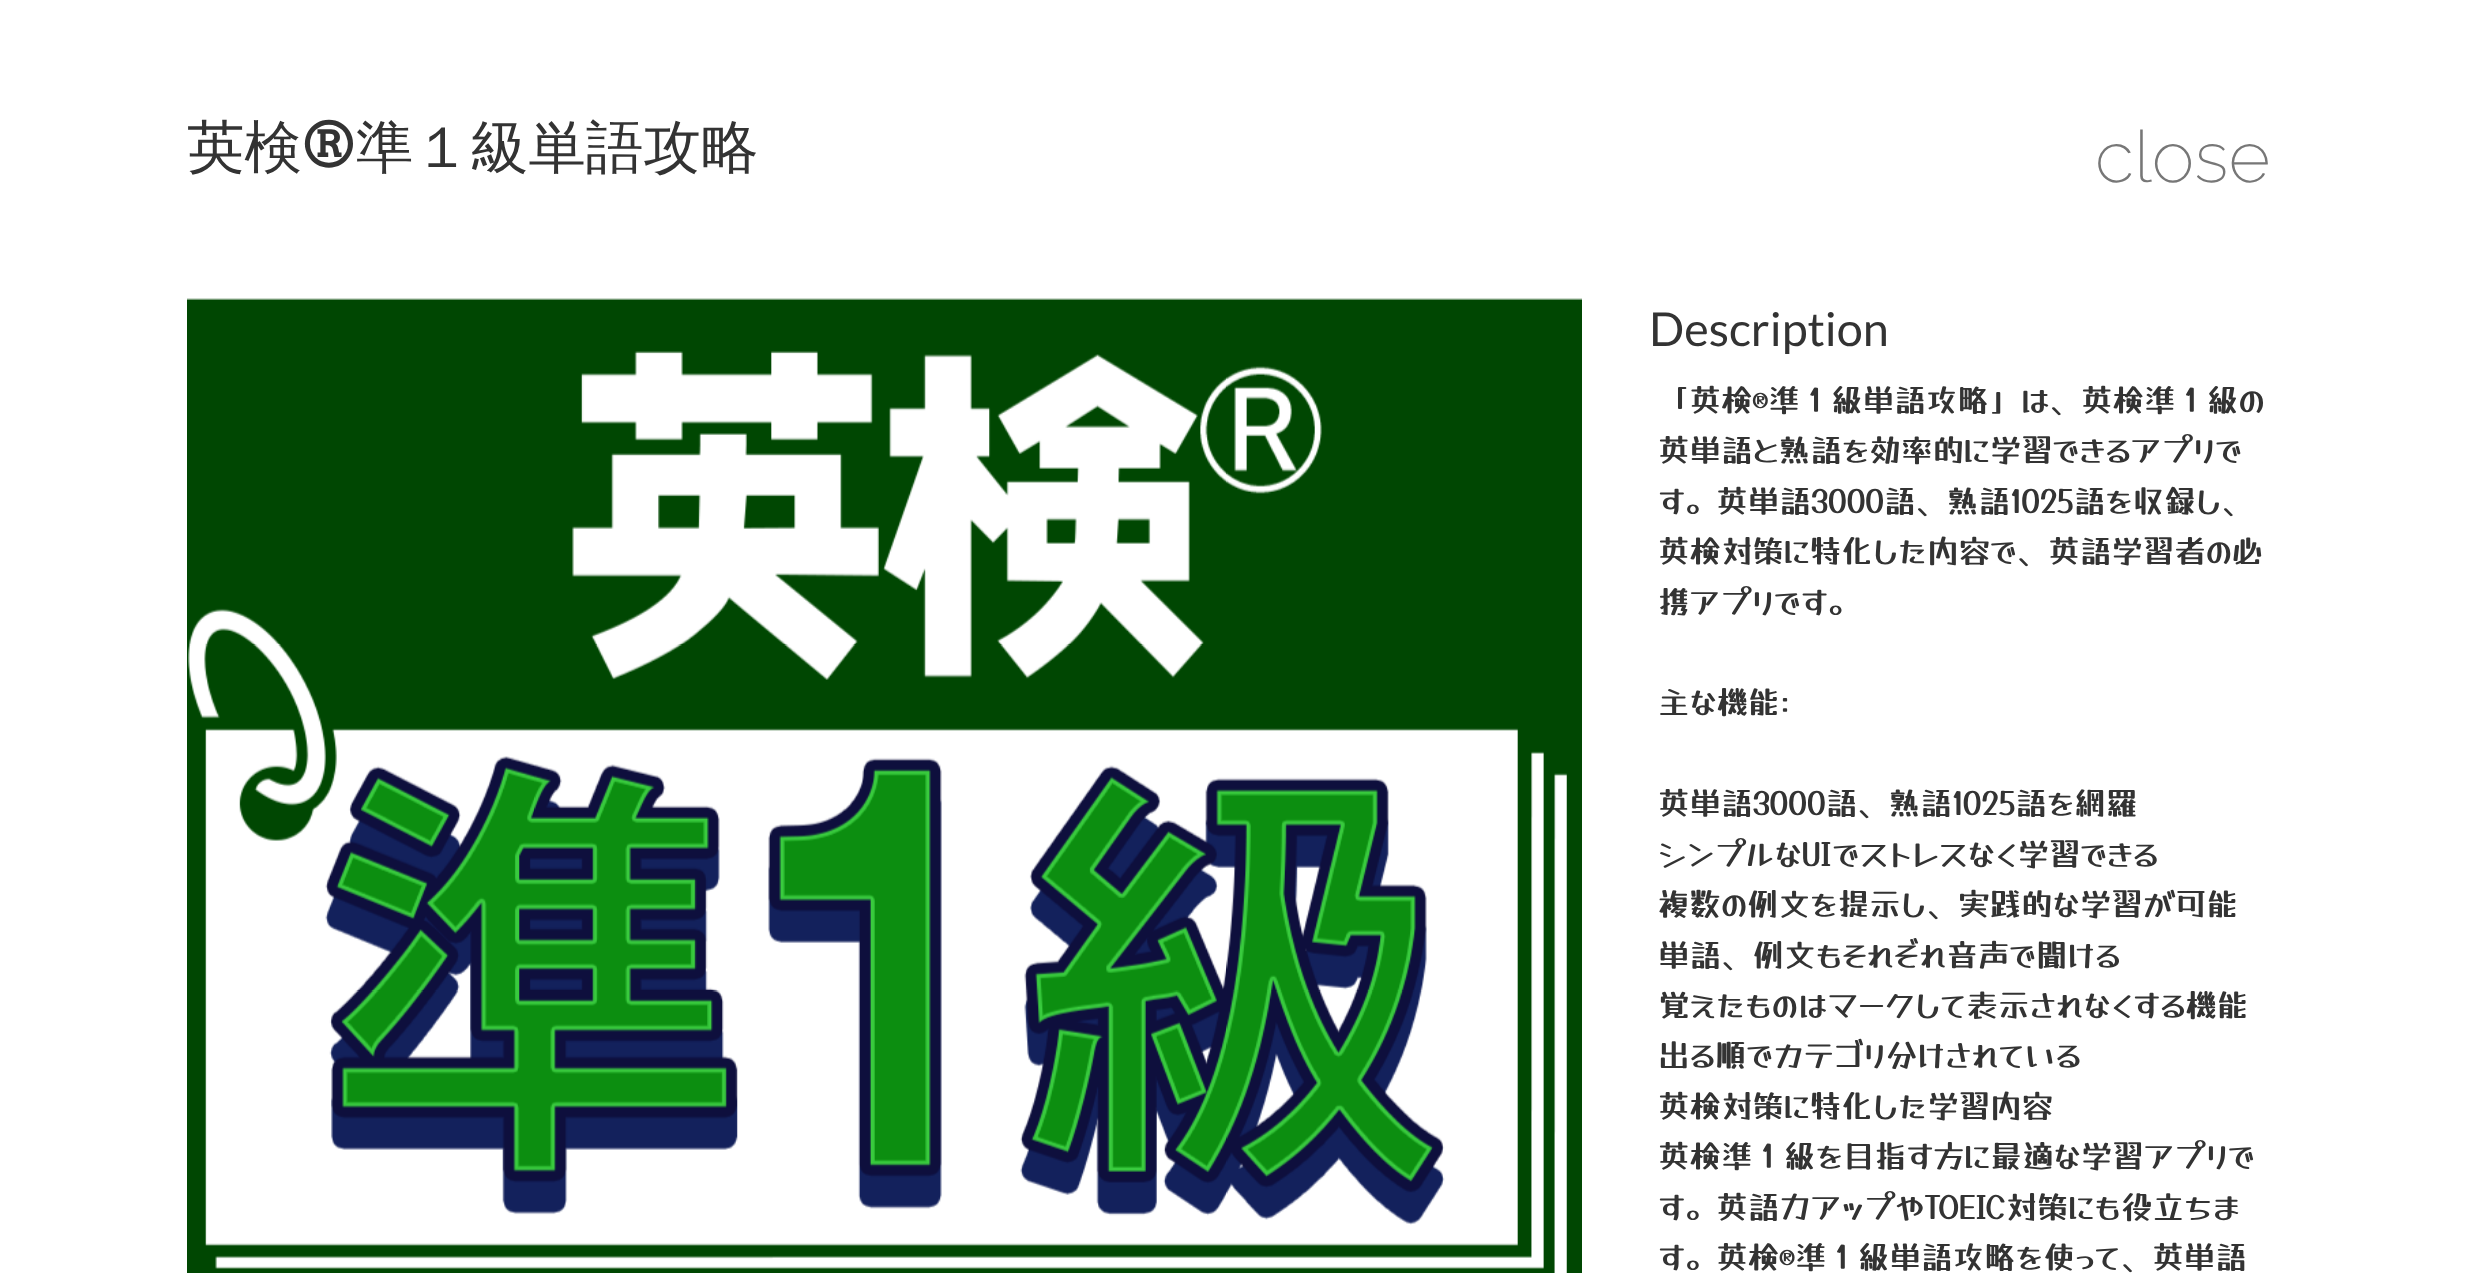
async function draw(canvas) {
  canvas.width = 2487;
  canvas.height = 1273;
  const ctx = canvas.getContext('2d');
  ctx.miterLimit = 4;
  ctx.fontKerning = 'normal';
  function label(s, x, y, font, color) {
    ctx.font = font;
    ctx.fillStyle = color;
    ctx.fillText(s, x, y);
  }
  function rect(x, y, w, h, color) {
    ctx.fillStyle = color;
    ctx.fillRect(x, y, w, h);
  }
  async function image(src, x, y, w, h) {
    const img = new Image();
    img.src = src;
    await img.decode();
    ctx.drawImage(img, x, y, w, h);
  }

  rect(0, 0, 2487, 1273, '#fff');
  label('英検', 187, 167, '500 57.5px WenQuanYi Zen Hei', '#333');
  label('®', 302, 167, '57.5px Arvo', '#333');
  label('準１級単語攻略', 356, 167, '500 57.5px WenQuanYi Zen Hei', '#333');
  label('close', 2095, 182, '200 72px Raleway', '#777');
  await image('assets/img1.png', 187, 298, 1395, 975);
  label('Description', 1649, 346, '46.75px Lato', '#333');
  label('「英検®準１級単語攻略」は、英検準１級の', 1658, 412, '31.5px Yusei Magic', '#333');
  label('英単語と熟語を効率的に学習できるアプリで', 1658, 462, '31.5px Yusei Magic', '#333');
  label('す。英単語3000語、熟語1025語を収録し、', 1658, 513, '31.5px Yusei Magic', '#333');
  label('英検対策に特化した内容で、英語学習者の必', 1658, 563, '31.5px Yusei Magic', '#333');
  label('携アプリです。', 1658, 614, '31.5px Yusei Magic', '#333');
  label('主な機能:', 1658, 714, '31.5px Yusei Magic', '#333');
  label('英単語3000語、熟語1025語を網羅', 1658, 815, '31.5px Yusei Magic', '#333');
  label('シンプルなUIでストレスなく学習できる', 1658, 866, '31.5px Yusei Magic', '#333');
  label('複数の例文を提示し、実践的な学習が可能', 1658, 916, '31.5px Yusei Magic', '#333');
  label('単語、例文もそれぞれ音声で聞ける', 1658, 967, '31.5px Yusei Magic', '#333');
  label('覚えたものはマークして表示されなくする機能', 1658, 1017, '31.5px Yusei Magic', '#333');
  label('出る順でカテゴリ分けされている', 1658, 1067, '31.5px Yusei Magic', '#333');
  label('英検対策に特化した学習内容', 1658, 1118, '31.5px Yusei Magic', '#333');
  label('英検準１級を目指す方に最適な学習アプリで', 1658, 1168, '31.5px Yusei Magic', '#333');
  label('す。英語力アップやTOEIC対策にも役立ちま', 1658, 1219, '31.5px Yusei Magic', '#333');
  label('す。英検®準１級単語攻略を使って、英単語', 1658, 1269, '31.5px Yusei Magic', '#333');
}

draw(document.querySelector('canvas'));
